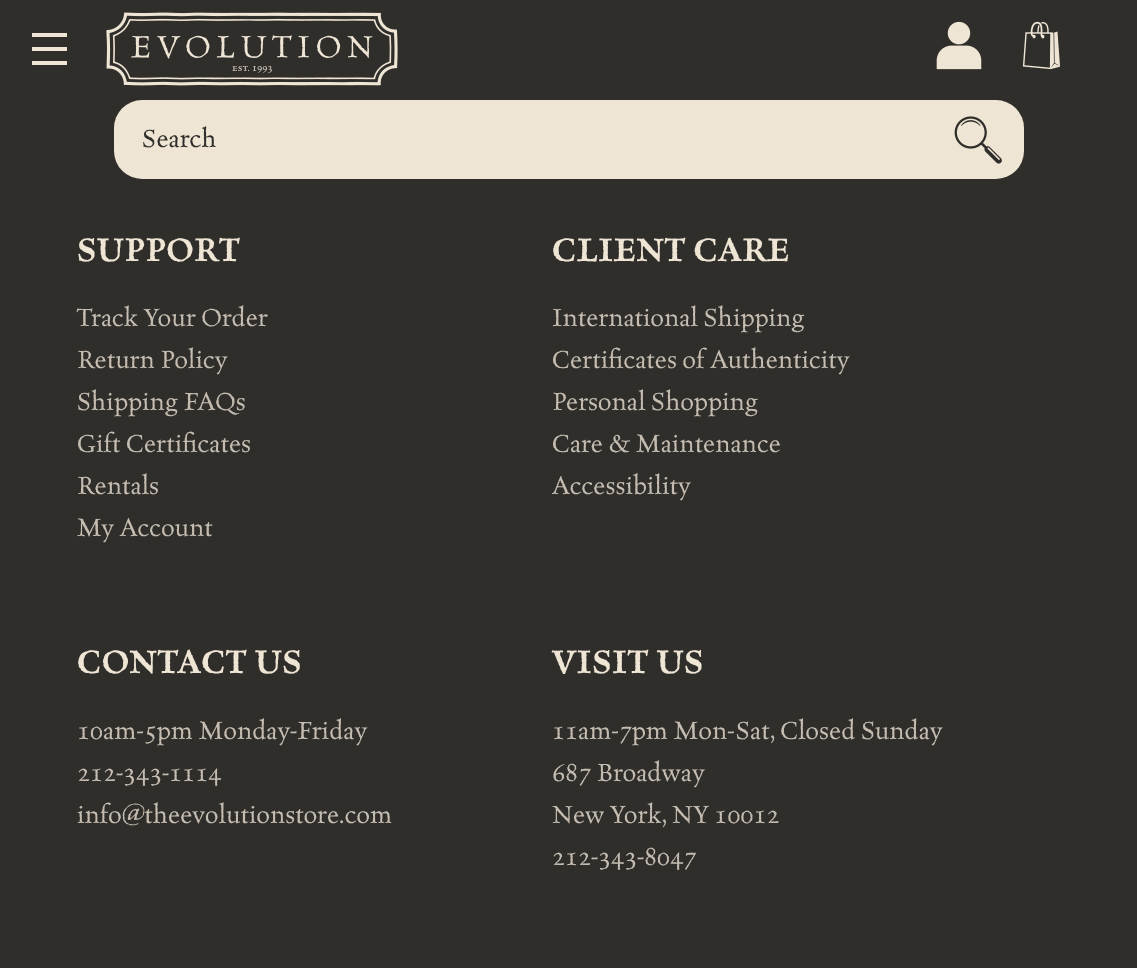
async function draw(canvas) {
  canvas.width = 1137;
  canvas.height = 968;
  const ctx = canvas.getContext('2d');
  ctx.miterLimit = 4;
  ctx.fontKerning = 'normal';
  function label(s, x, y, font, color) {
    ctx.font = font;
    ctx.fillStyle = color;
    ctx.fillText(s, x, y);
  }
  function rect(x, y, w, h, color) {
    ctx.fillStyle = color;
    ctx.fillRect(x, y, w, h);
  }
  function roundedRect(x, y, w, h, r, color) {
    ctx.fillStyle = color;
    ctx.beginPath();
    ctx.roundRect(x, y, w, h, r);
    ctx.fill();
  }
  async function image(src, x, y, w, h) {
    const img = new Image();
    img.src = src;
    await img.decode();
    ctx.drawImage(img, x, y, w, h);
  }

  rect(0, 0, 1137, 968, '#302e2b');
  rect(32, 47, 35, 4, '#efe5d5');
  rect(32, 33, 35, 4, '#efe5d5');
  rect(32, 61, 35, 4, '#efe5d5');
  await image('assets/img1.png', 106, 12, 292, 74);
  await image('assets/img2.png', 936, 21, 46, 49);
  await image('assets/img3.png', 1022, 21, 38, 49);
  roundedRect(114, 100, 910, 79, 28, '#efe5d5');
  label('Search', 142, 147, '28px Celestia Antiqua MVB', '#302e2b');
  await image('assets/img4.png', 954, 116, 48, 48);
  ctx.letterSpacing = '0.5px';
  label('SUPPORT', 77, 261, '600 36.75px Celestia Antiqua MVB', '#efe5d5');
  ctx.letterSpacing = '0px';
  label('Track Your Order', 77, 326, '28px Celestia Antiqua MVB', '#c5bdb2');
  label('Return Policy', 77, 368, '28px Celestia Antiqua MVB', '#c5bdb2');
  label('Shipping FAQs', 77, 410, '28px Celestia Antiqua MVB', '#c5bdb2');
  label('Gift Certificates', 77, 452, '28px Celestia Antiqua MVB', '#c5bdb2');
  label('Rentals', 77, 494, '28px Celestia Antiqua MVB', '#c5bdb2');
  label('My Account', 77, 536, '28px Celestia Antiqua MVB', '#c5bdb2');
  ctx.letterSpacing = '0.5px';
  label('CLIENT CARE', 552, 261, '600 36.75px Celestia Antiqua MVB', '#efe5d5');
  ctx.letterSpacing = '0px';
  label('International Shipping', 552, 326, '28px Celestia Antiqua MVB', '#c5bdb2');
  label('Certificates of Authenticity', 552, 368, '28px Celestia Antiqua MVB', '#c5bdb2');
  label('Personal Shopping', 552, 410, '28px Celestia Antiqua MVB', '#c5bdb2');
  label('Care & Maintenance', 552, 452, '28px Celestia Antiqua MVB', '#c5bdb2');
  label('Accessibility', 552, 494, '28px Celestia Antiqua MVB', '#c5bdb2');
  ctx.letterSpacing = '0.5px';
  label('CONTACT US', 77, 673, '600 36.75px Celestia Antiqua MVB', '#efe5d5');
  ctx.letterSpacing = '0px';
  label('10am-5pm Monday-Friday', 77, 739, '28px Celestia Antiqua MVB', '#c5bdb2');
  label('212-343-1114', 77, 781, '28px Celestia Antiqua MVB', '#c5bdb2');
  label('info@theevolutionstore.com', 77, 823, '28px Celestia Antiqua MVB', '#c5bdb2');
  ctx.letterSpacing = '0.5px';
  label('VISIT US', 552, 673, '600 36.75px Celestia Antiqua MVB', '#efe5d5');
  ctx.letterSpacing = '0px';
  label('11am-7pm Mon-Sat, Closed Sunday', 552, 739, '28px Celestia Antiqua MVB', '#c5bdb2');
  label('687 Broadway', 552, 781, '28px Celestia Antiqua MVB', '#c5bdb2');
  label('New York, NY 10012', 552, 823, '28px Celestia Antiqua MVB', '#c5bdb2');
  label('212-343-8047', 552, 865, '28px Celestia Antiqua MVB', '#c5bdb2');
}

draw(document.querySelector('canvas'));
